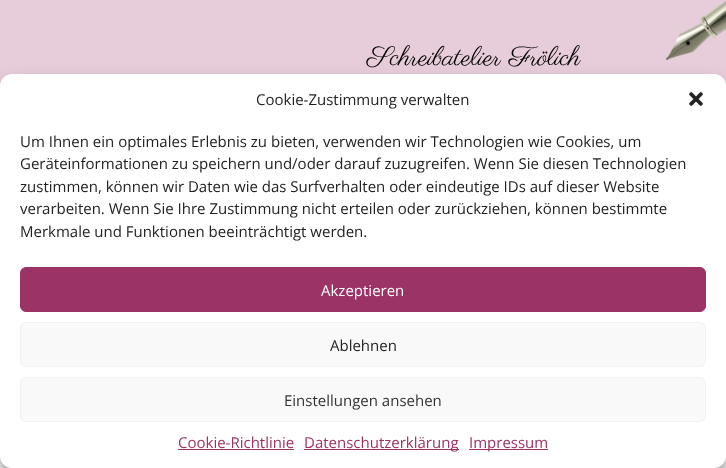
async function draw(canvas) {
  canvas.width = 726;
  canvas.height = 468;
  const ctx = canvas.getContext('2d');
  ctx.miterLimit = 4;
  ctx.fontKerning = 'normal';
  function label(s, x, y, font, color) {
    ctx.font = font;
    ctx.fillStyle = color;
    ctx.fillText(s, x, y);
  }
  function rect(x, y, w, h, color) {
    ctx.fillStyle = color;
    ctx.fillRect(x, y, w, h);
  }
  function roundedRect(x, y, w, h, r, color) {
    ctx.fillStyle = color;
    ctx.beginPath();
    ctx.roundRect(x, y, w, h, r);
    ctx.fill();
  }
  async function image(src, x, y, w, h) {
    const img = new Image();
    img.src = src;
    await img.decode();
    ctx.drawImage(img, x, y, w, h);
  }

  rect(0, 0, 726, 468, '#fff');
  rect(0, 0, 726, 86, '#e7cdda');
  label('Schreibatelier Frölich', 367, 65, '27px Parisienne', '#000');
  await image('assets/img1.png', 666, 0, 60, 60);
  ctx.fillStyle = '#0000003b';
  ctx.filter = 'blur(3px)';
  ctx.beginPath();
  ctx.roundRect(0, 80, 726, 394, 12);
  ctx.fill();
  ctx.filter = 'none';
  ctx.fillStyle = '#00000030';
  ctx.filter = 'blur(10px)';
  ctx.beginPath();
  ctx.roundRect(0, 84, 726, 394, 12);
  ctx.fill();
  ctx.filter = 'none';
  roundedRect(0, 74, 726, 394, 12, '#fff');
  label('Cookie-Zustimmung verwalten', 256, 105, '15px Open Sans', '#222');
  await image('assets/img2.png', 689, 92, 14, 14);
  label('Um Ihnen ein optimales Erlebnis zu bieten, verwenden wir Technologien wie Cookies, um', 20, 147, '15px Open Sans', '#222');
  label('Geräteinformationen zu speichern und/oder darauf zuzugreifen. Wenn Sie diesen Technologien', 20, 169, '15px Open Sans', '#222');
  label('zustimmen, können wir Daten wie das Surfverhalten oder eindeutige IDs auf dieser Website', 20, 192, '15px Open Sans', '#222');
  label('verarbeiten. Wenn Sie Ihre Zustimmung nicht erteilen oder zurückziehen, können bestimmte', 20, 214, '15px Open Sans', '#222');
  label('Merkmale und Funktionen beeinträchtigt werden.', 20, 237, '15px Open Sans', '#222');
  ctx.fillStyle = '#9b3366';
  ctx.beginPath();
  ctx.roundRect(20.5, 267.5, 685, 44, 5.5);
  ctx.fill();
  ctx.strokeStyle = '#9b3366';
  ctx.stroke();
  label('Akzeptieren', 321, 296, '15px Open Sans', '#fff');
  ctx.fillStyle = '#f9f9f9';
  ctx.beginPath();
  ctx.roundRect(20.5, 322.5, 685, 44, 5.5);
  ctx.fill();
  ctx.strokeStyle = '#f2f2f2';
  ctx.stroke();
  label('Ablehnen', 330, 351, '15px Open Sans', '#222');
  ctx.fillStyle = '#f9f9f9';
  ctx.beginPath();
  ctx.roundRect(20.5, 377.5, 685, 44, 5.5);
  ctx.fill();
  ctx.stroke();
  label('Einstellungen ansehen', 284, 406, '15px Open Sans', '#333');
  label('Cookie-Richtlinie', 178, 448, '15px Open Sans', '#9b3366');
  rect(178, 449, 116, 1, '#9b3366');
  rect(304, 449, 155, 1, '#9b3366');
  label('Datenschutzerklärung', 304, 448, '15px Open Sans', '#9b3366');
  rect(469, 449, 79, 1, '#9b3366');
  label('Impressum', 469, 448, '15px Open Sans', '#9b3366');
}

draw(document.querySelector('canvas'));
